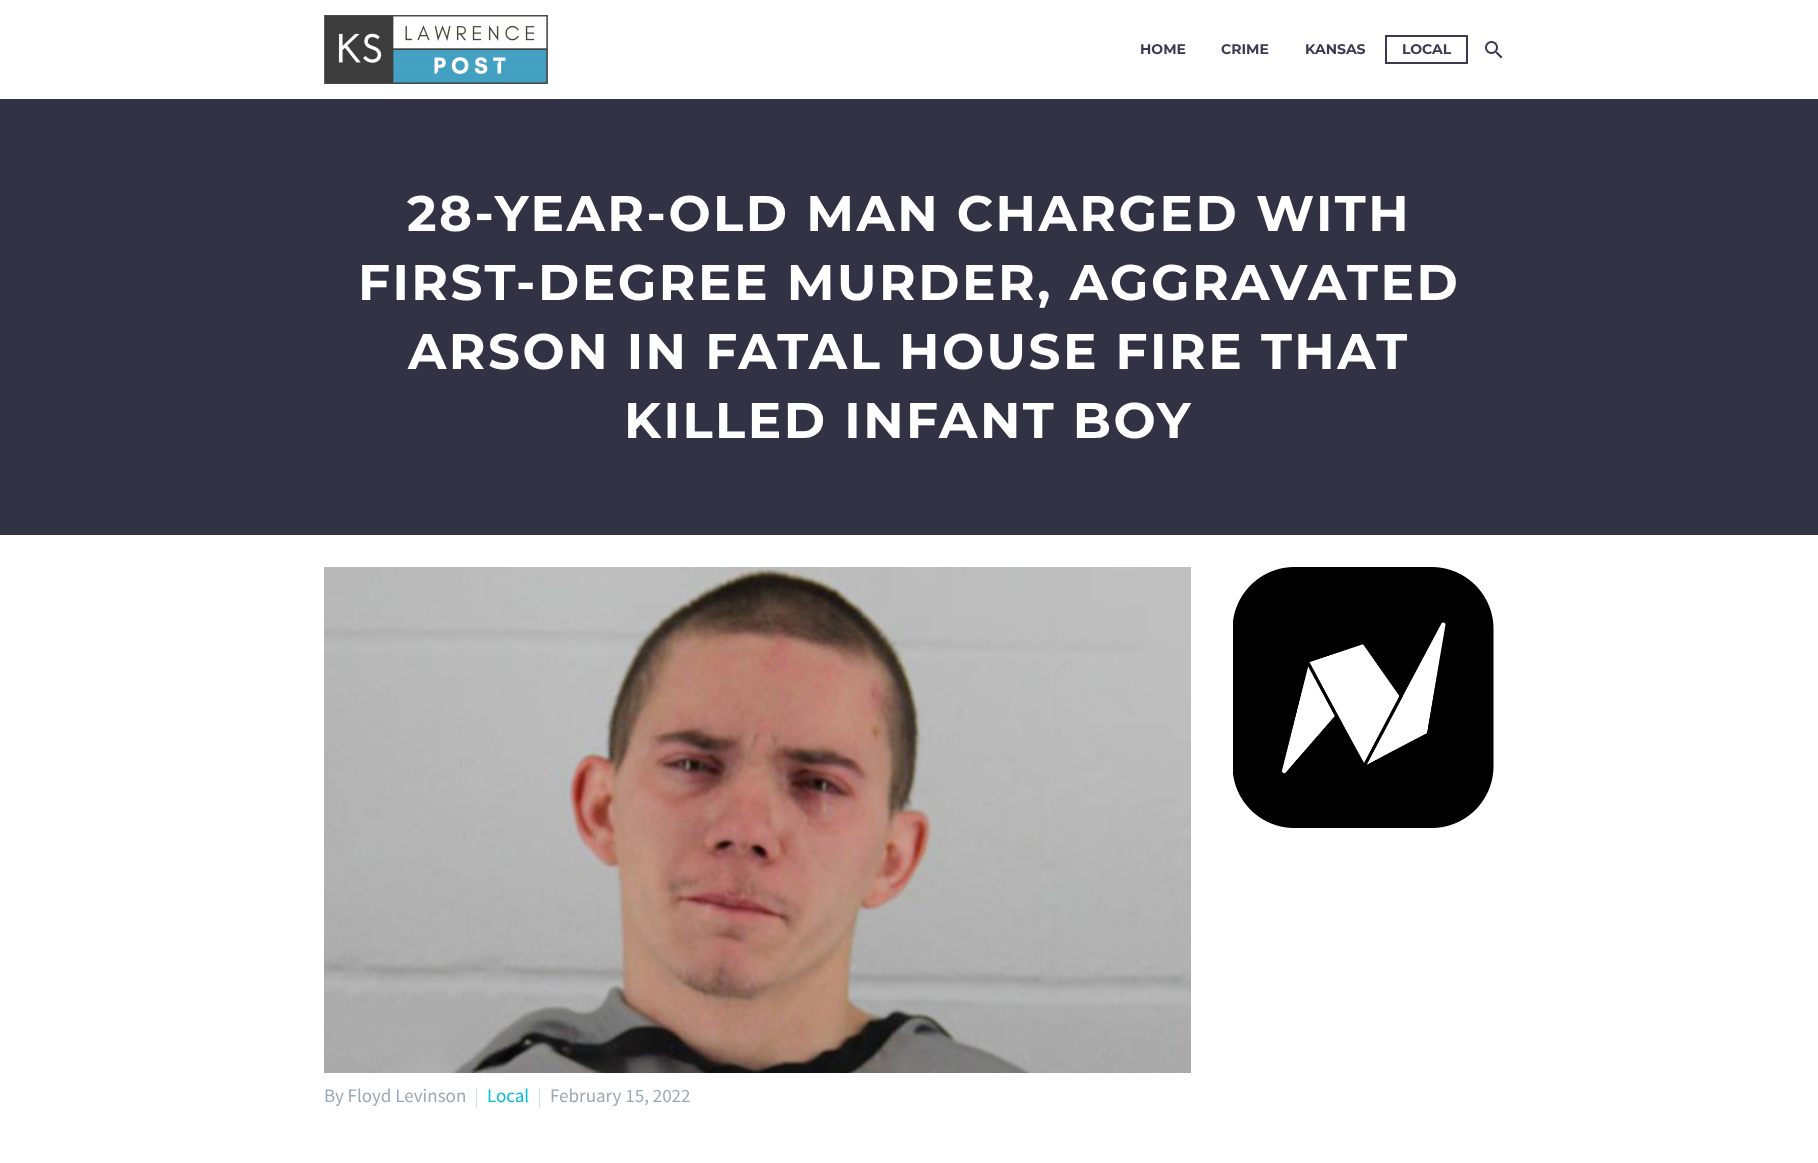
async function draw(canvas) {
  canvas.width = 1818;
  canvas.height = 1163;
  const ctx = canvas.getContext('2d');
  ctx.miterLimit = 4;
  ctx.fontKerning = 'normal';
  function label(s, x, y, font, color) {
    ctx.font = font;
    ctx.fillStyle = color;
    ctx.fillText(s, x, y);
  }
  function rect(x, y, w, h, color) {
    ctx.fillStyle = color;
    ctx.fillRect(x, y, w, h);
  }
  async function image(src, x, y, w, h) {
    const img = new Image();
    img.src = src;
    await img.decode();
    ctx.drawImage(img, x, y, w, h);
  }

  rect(0, 0, 1818, 1163, '#fff');
  await image('assets/img1.png', 324, 15, 224, 69);
  label('HOME', 1140, 54, 'bold 14px Montserrat', '#3c3950');
  label('CRIME', 1221, 54, 'bold 14px Montserrat', '#3c3950');
  label('KANSAS', 1305, 54, 'bold 14px Montserrat', '#3c3950');
  ctx.strokeStyle = '#3c3950';
  ctx.lineWidth = 2;
  ctx.strokeRect(1386, 36, 81, 27);
  label('LOCAL', 1402, 54, 'bold 14px Montserrat', '#3c3950');
  await image('assets/img2.png', 1485, 41, 18, 18);
  rect(0, 99, 1818, 436, '#333144');
  ctx.letterSpacing = '2.5px';
  label('28-YEAR-OLD MAN CHARGED WITH', 407, 231, 'bold 50px Montserrat', '#fff');
  label('FIRST-DEGREE MURDER, AGGRAVATED', 358, 300, 'bold 50px Montserrat', '#fff');
  label('ARSON IN FATAL HOUSE FIRE THAT', 408, 369, 'bold 50px Montserrat', '#fff');
  label('KILLED INFANT BOY', 624, 438, 'bold 50px Montserrat', '#fff');
  await image('assets/img3.png', 1233, 567, 261, 261);
  await image('assets/img4.png', 324, 567, 867, 506);
  ctx.letterSpacing = '0px';
  label('By Floyd Levinson', 324, 1102, '19px Source Sans Pro', '#99a9b5');
  rect(476, 1088, 1, 20, '#d4dee1');
  label('Local', 487, 1102, '19px Source Sans Pro', '#00bcd4');
  rect(539, 1088, 1, 20, '#d4dee1');
  label('February 15, 2022', 550, 1102, '19px Source Sans Pro', '#99a9b5');
}

draw(document.querySelector('canvas'));
